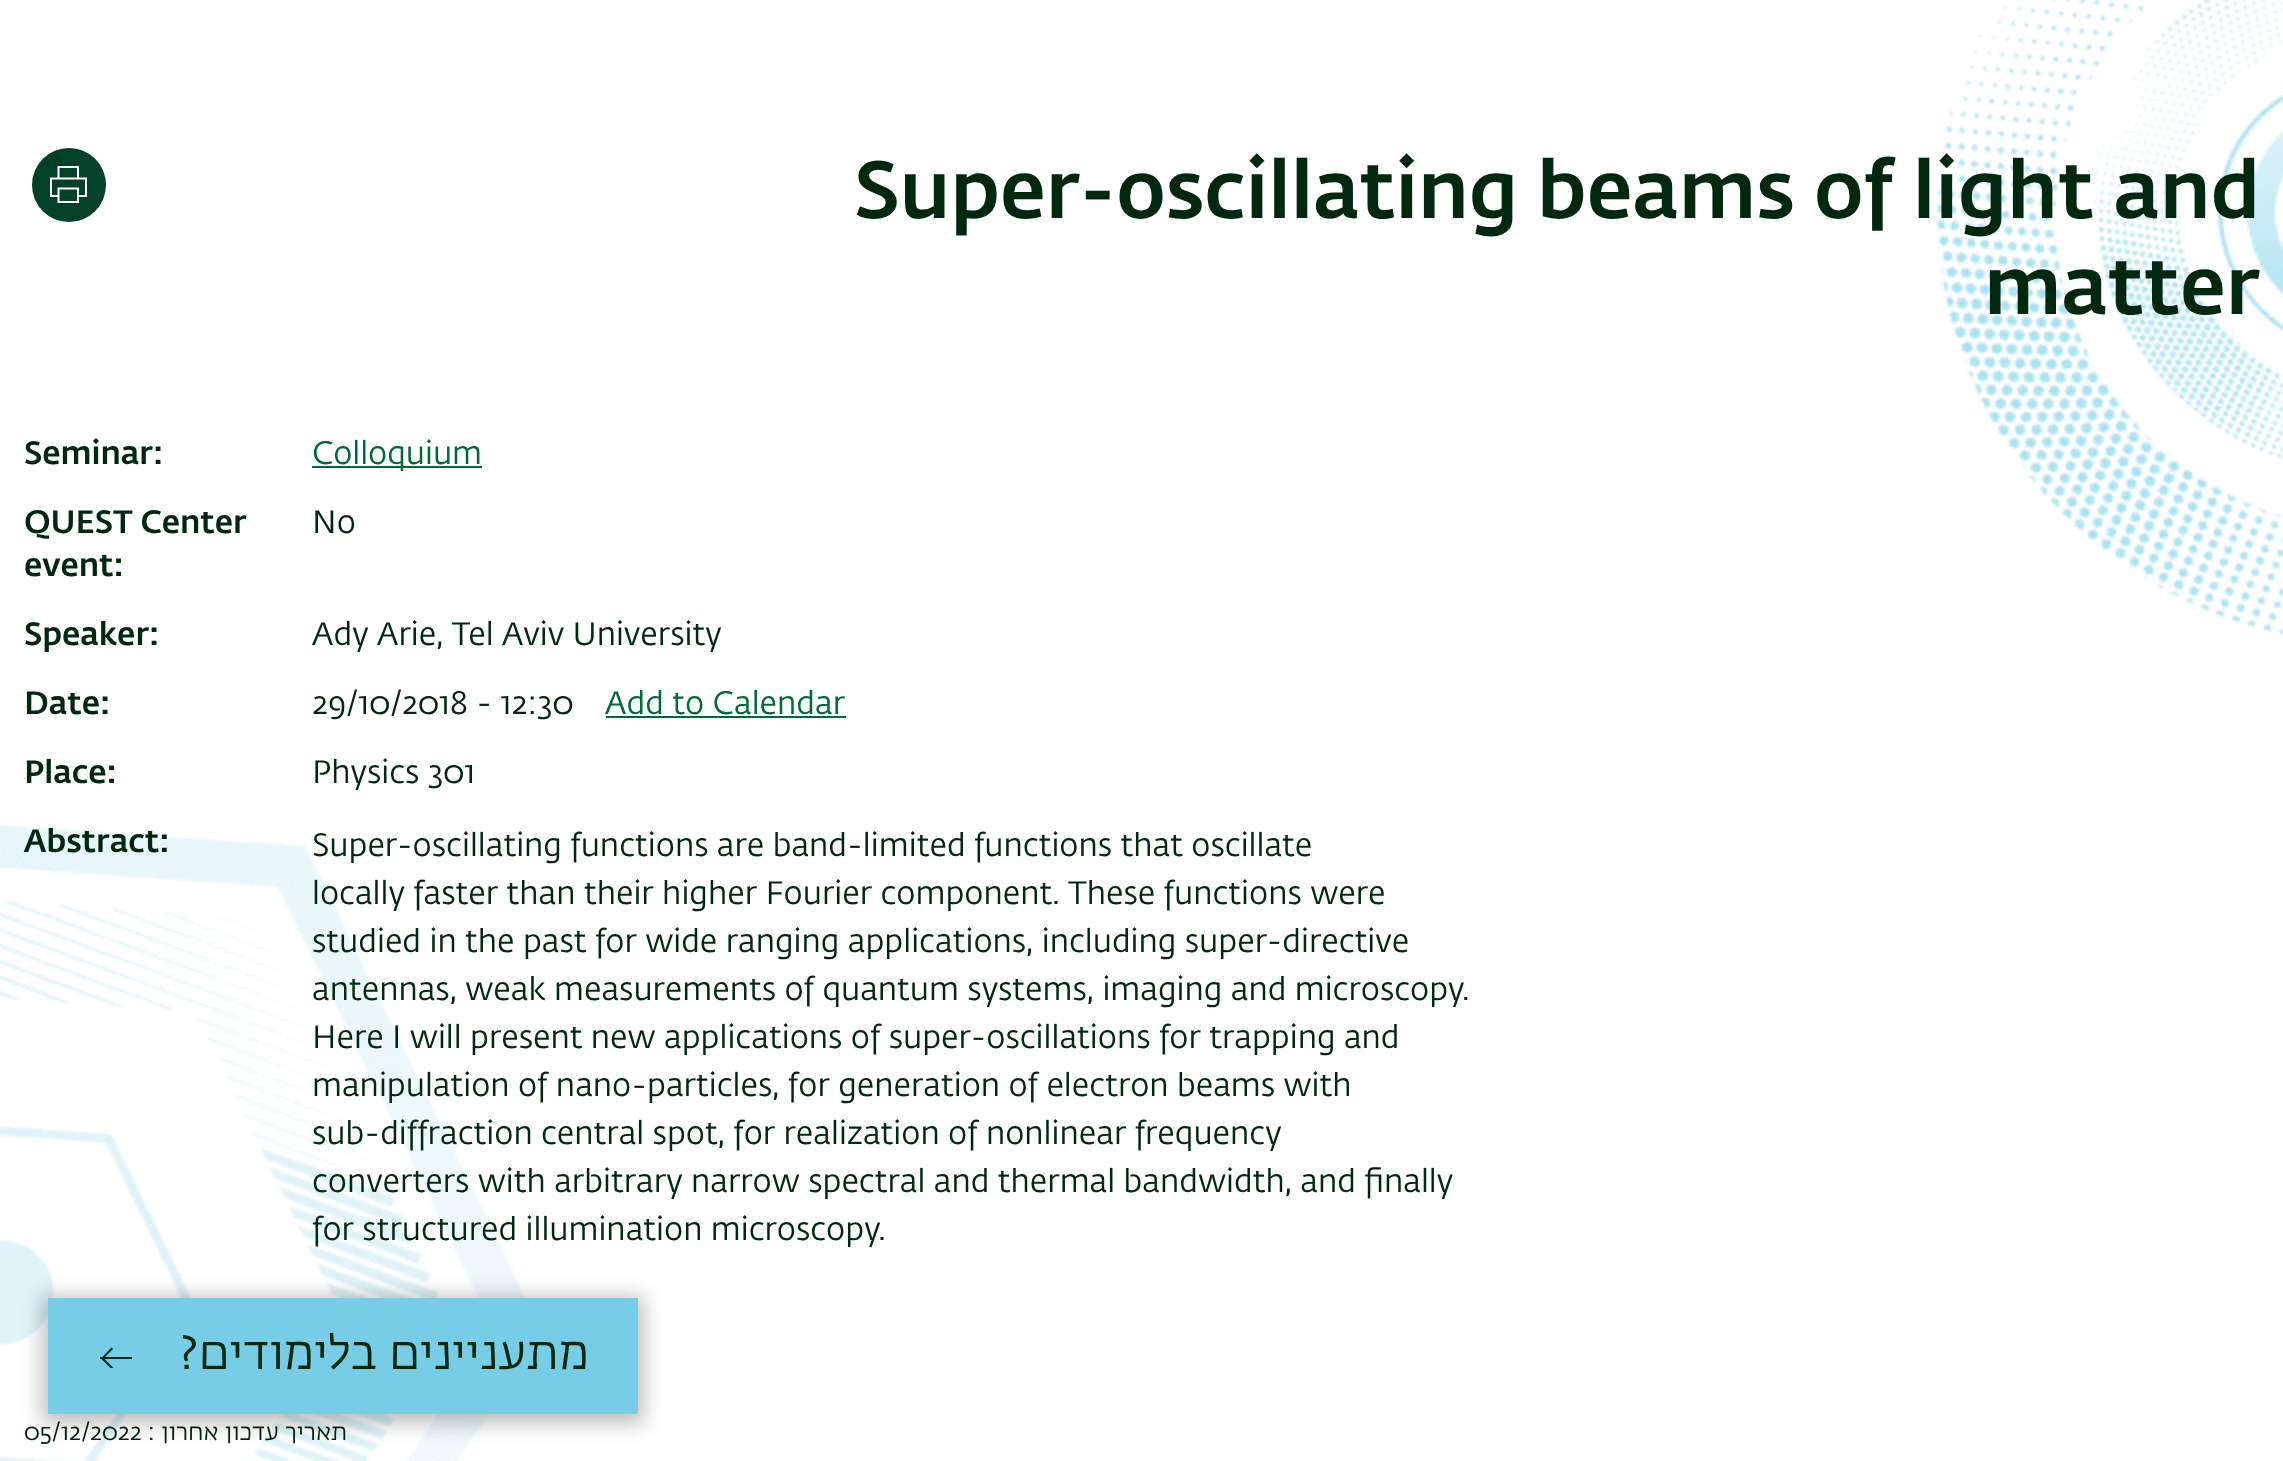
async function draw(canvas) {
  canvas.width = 2283;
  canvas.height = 1461;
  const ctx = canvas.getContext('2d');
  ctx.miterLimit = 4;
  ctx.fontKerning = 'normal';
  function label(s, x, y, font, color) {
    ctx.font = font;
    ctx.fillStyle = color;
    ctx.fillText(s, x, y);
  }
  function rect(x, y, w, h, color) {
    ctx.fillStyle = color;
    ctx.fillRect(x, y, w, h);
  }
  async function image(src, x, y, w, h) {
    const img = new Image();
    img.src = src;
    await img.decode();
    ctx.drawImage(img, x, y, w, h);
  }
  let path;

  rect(0, 0, 2283, 1461, '#fff');
  await image('assets/img1.png', 1936, 0, 347, 636);
  ctx.fillStyle = '#004128';
  ctx.beginPath();
  ctx.arc(69, 185, 37, 0, 2 * Math.PI);
  ctx.fill();
  path = new Path2D('M78 188.5V202H58.5V188.5ZM78 167V178.5H58.5V167ZM58.5 196H51V178.5H86V196H78');
  ctx.strokeStyle = '#fff';
  ctx.lineWidth = 2;
  ctx.lineCap = 'square';
  ctx.stroke(path);
  label('Super-oscillating beams of light and', 854, 218, '500 80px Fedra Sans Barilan', '#00280f');
  label('matter', 1984, 314, '500 80px Fedra Sans Barilan', '#00280f');
  label('Seminar:', 24, 464, '500 32px Fedra Sans Barilan', '#00280f');
  rect(312, 466, 170, 2, '#006937');
  label('Colloquium', 312, 464, '32px Fedra Sans Barilan', '#006937');
  label('QUEST Center', 24, 533, '500 32px Fedra Sans Barilan', '#00280f');
  label('event:', 24, 576, '500 32px Fedra Sans Barilan', '#00280f');
  label('No', 312, 533, '32px Fedra Sans Barilan', '#00280f');
  label('Speaker:', 24, 645, '500 32px Fedra Sans Barilan', '#00280f');
  label('Ady Arie, Tel Aviv University', 312, 645, '32px Fedra Sans Barilan', '#00280f');
  label('Date:', 24, 714, '500 32px Fedra Sans Barilan', '#00280f');
  label('29/10/2018 - 12:30', 312, 714, '32px Fedra Sans Barilan', '#00280f');
  label('Add to Calendar', 605, 714, '32px Fedra Sans Barilan', '#006937');
  rect(606, 716, 240, 2, '#006937');
  label('Place:', 24, 783, '500 32px Fedra Sans Barilan', '#00280f');
  label('Physics 301', 312, 783, '32px Fedra Sans Barilan', '#00280f');
  await image('assets/img2.png', 0, 824, 527, 637);
  label('Abstract:', 24, 852, '500 32px Fedra Sans Barilan', '#00280f');
  label('Super-oscillating functions are band-limited functions that oscillate', 312, 856, '32px Fedra Sans Barilan', '#00280f');
  label('locally faster than their higher Fourier component. These functions were', 312, 904, '32px Fedra Sans Barilan', '#00280f');
  label('studied in the past for wide ranging applications, including super-directive', 312, 952, '32px Fedra Sans Barilan', '#00280f');
  label('antennas, weak measurements of quantum systems, imaging and microscopy.', 312, 1000, '32px Fedra Sans Barilan', '#00280f');
  label('Here I will present new applications of super-oscillations for trapping and', 312, 1048, '32px Fedra Sans Barilan', '#00280f');
  label('manipulation of nano-particles, for generation of electron beams with', 312, 1096, '32px Fedra Sans Barilan', '#00280f');
  label('sub-diffraction central spot, for realization of nonlinear frequency', 312, 1144, '32px Fedra Sans Barilan', '#00280f');
  label('converters with arbitrary narrow spectral and thermal bandwidth, and finally', 312, 1192, '32px Fedra Sans Barilan', '#00280f');
  label('for structured illumination microscopy.', 312, 1240, '32px Fedra Sans Barilan', '#00280f');
  label('05/12/2022', 24, 1440, '24px Fedra Sans Barilan', '#00280f');
  ctx.direction = 'rtl';
  label('תאריך עדכון אחרון :', 347, 1440, '24px Fedra Sans Barilan', '#00280f');
  ctx.fillStyle = '#00000040';
  ctx.filter = 'blur(10px)';
  ctx.beginPath();
  ctx.rect(42, 1296, 602, 128);
  ctx.fill();
  ctx.filter = 'none';
  rect(48, 1298, 590, 116, '#78cde6');
  rect(100, 1357, 32, 2, '#06301a');
  ctx.save();
  ctx.beginPath();
  ctx.rect(100, 1346, 32, 22);
  ctx.clip();
  ctx.fillStyle = '#00280f';
  path = new Path2D('M111.5 1369L113 1367.5L104.5 1359H131V1357.5H104.5L113 1349L111.5 1347.5L101 1358.5Z');
  ctx.fill(path);
  ctx.restore();
  label('מתעניינים בלימודים?', 589, 1369, '48px Fedra Sans Barilan', '#00280f');
}

draw(document.querySelector('canvas'));
